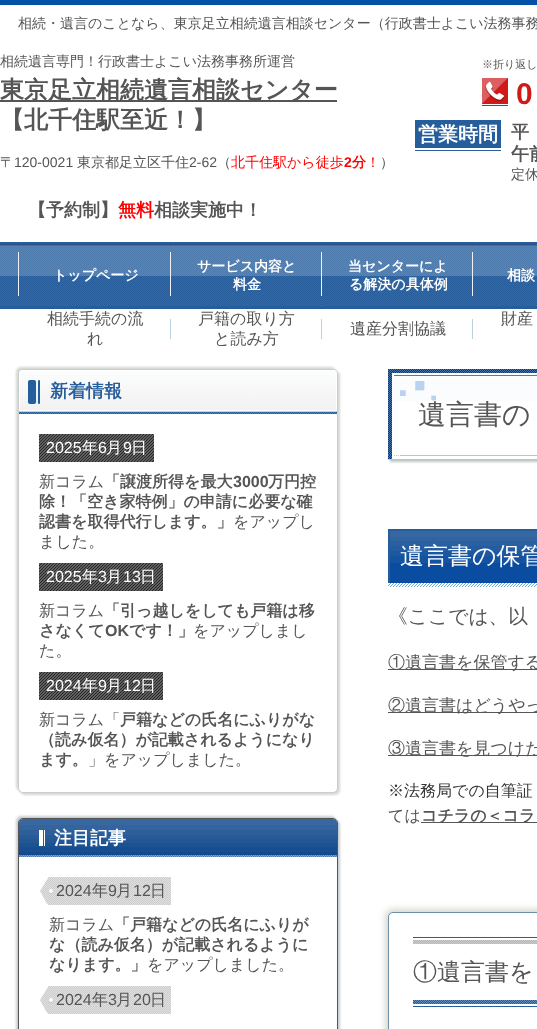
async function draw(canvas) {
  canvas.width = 537;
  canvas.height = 1029;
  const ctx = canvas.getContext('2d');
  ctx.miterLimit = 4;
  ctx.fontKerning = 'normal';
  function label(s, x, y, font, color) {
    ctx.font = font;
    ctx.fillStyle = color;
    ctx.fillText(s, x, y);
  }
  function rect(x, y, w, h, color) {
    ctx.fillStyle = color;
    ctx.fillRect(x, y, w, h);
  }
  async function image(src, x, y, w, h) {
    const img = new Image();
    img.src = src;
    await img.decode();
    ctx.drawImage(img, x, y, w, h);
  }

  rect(0, 0, 537, 1029, '#fff');
  await image('assets/img1.png', 0, 0, 537, 5);
  label('相続・遺言のことなら、東京足立相続遺言相談センター（行政書士よこい法務事務', 18, 28, '500 14px WenQuanYi Zen Hei', '#555');
  label('相続遺言専門！行政書士よこい法務事務所運営', 0, 66, '500 14px WenQuanYi Zen Hei', '#555');
  rect(0, 100, 337, 2, '#555');
  label('東京足立相続遺言相談センター', 0, 98, 'bold 24px WenQuanYi Zen Hei', '#555');
  label('【北千住駅至近！】', 0, 128, 'bold 24px WenQuanYi Zen Hei', '#555');
  label('〒', 0, 167, '500 14px WenQuanYi Zen Hei', '#555');
  label('120-0021', 14, 167, '14px Liberation Sans', '#555');
  label('東京都足立区千住', 77, 167, '500 14px WenQuanYi Zen Hei', '#555');
  label('2-62', 189, 167, '14px Liberation Sans', '#555');
  label('（', 217, 167, '500 14px WenQuanYi Zen Hei', '#555');
  label('北千住駅から徒歩', 231, 167, '500 14px WenQuanYi Zen Hei', '#f00');
  label('2', 344, 167, 'bold 14px Liberation Sans', '#f00');
  label('分', 352, 167, 'bold 14px WenQuanYi Zen Hei', '#f00');
  label('！', 366, 167, '500 14px WenQuanYi Zen Hei', '#f00');
  label('）', 380, 167, '500 14px WenQuanYi Zen Hei', '#555');
  label('【予約制】', 28, 216, 'bold 18px WenQuanYi Zen Hei', '#555');
  label('無料', 118, 216, 'bold 18px WenQuanYi Zen Hei', '#f00');
  label('相談実施中！', 154, 216, 'bold 18px WenQuanYi Zen Hei', '#555');
  label('※折り返し', 482, 68, '500 11px WenQuanYi Zen Hei', '#56534e');
  await image('assets/img2.png', 482, 78, 26, 28);
  label('0', 516, 104, 'bold 30px Liberation Sans', '#d01a1a');
  rect(415, 120, 86, 28, '#265d9b');
  label('営業時間', 418, 141, 'bold 20px WenQuanYi Zen Hei', '#fff');
  rect(415, 150, 86, 1, '#265d9b');
  label('平', 511, 138, 'bold 18px WenQuanYi Zen Hei', '#555');
  label('午前', 511, 160, 'bold 18px WenQuanYi Zen Hei', '#555');
  label('定休', 511, 179, '500 14px WenQuanYi Zen Hei', '#555');
  await image('assets/img3.png', 0, 242, 537, 64);
  await image('assets/img6.png', 0, 276, 537, 33);
  await image('assets/img4.png', 18, 244, 1, 52);
  await image('assets/img4.png', 170, 244, 1, 52);
  label('トップページ', 53, 280, 'bold 14px WenQuanYi Zen Hei', '#fff');
  await image('assets/img5.png', 321, 244, 1, 62);
  label('サービス内容と', 197, 271, 'bold 14px WenQuanYi Zen Hei', '#fff');
  label('料金', 233, 289, 'bold 14px WenQuanYi Zen Hei', '#fff');
  await image('assets/img4.png', 472, 244, 1, 52);
  label('当センターによ', 348, 271, 'bold 14px WenQuanYi Zen Hei', '#fff');
  label('る解決の具体例', 349, 289, 'bold 14px WenQuanYi Zen Hei', '#fff');
  label('相談', 507, 280, 'bold 14px WenQuanYi Zen Hei', '#fff');
  rect(170, 319, 1, 20, '#bad1e2');
  label('相続手続の流', 47, 324, '500 16px WenQuanYi Zen Hei', '#555');
  label('れ', 87, 344, '500 16px WenQuanYi Zen Hei', '#555');
  rect(321, 319, 1, 20, '#bad1e2');
  label('戸籍の取り方', 198, 324, '500 16px WenQuanYi Zen Hei', '#555');
  label('と読み方', 214, 344, '500 16px WenQuanYi Zen Hei', '#555');
  rect(472, 319, 1, 20, '#bad1e2');
  label('遺産分割協議', 350, 334, '500 16px WenQuanYi Zen Hei', '#555');
  label('財産', 501, 324, '500 16px WenQuanYi Zen Hei', '#555');
  ctx.fillStyle = '#d4d7d2';
  ctx.filter = 'blur(1px)';
  ctx.beginPath();
  ctx.roundRect(16, 367, 320, 424, 5);
  ctx.fill();
  ctx.filter = 'none';
  ctx.filter = 'blur(1px)';
  ctx.beginPath();
  ctx.roundRect(20, 371, 320, 424, 5);
  ctx.fill();
  ctx.filter = 'none';
  ctx.fillStyle = '#fff';
  ctx.beginPath();
  ctx.roundRect(18.5, 369.5, 319, 423, 4.5);
  ctx.fill();
  ctx.strokeStyle = '#ccc';
  ctx.stroke();
  await image('assets/img7.png', 19, 370, 318, 44);
  ctx.beginPath();
  ctx.roundRect(19.5, 370.5, 317, 40, [3.5, 3.5, 0, 0]);
  ctx.strokeStyle = '#fff';
  ctx.stroke();
  label('新着情報', 50, 397, 'bold 18px WenQuanYi Zen Hei', '#265d9b');
  await image('assets/img8.png', 39, 434, 115, 28);
  label('2025', 46, 453, '16px Liberation Sans', '#fff');
  label('年', 82, 453, '500 16px WenQuanYi Zen Hei', '#fff');
  label('6', 98, 453, '16px Liberation Sans', '#fff');
  label('月', 106, 453, '500 16px WenQuanYi Zen Hei', '#fff');
  label('9', 123, 453, '16px Liberation Sans', '#fff');
  label('日', 131, 453, '500 16px WenQuanYi Zen Hei', '#fff');
  label('新コラム', 39, 487, '500 16px WenQuanYi Zen Hei', '#555');
  label('「譲渡所得を最大', 104, 487, 'bold 16px WenQuanYi Zen Hei', '#555');
  label('3000', 233, 487, 'bold 16px Liberation Sans', '#555');
  label('万円控', 268, 487, 'bold 16px WenQuanYi Zen Hei', '#555');
  label('除！「空き家特例」の申請に必要な確', 39, 507, 'bold 16px WenQuanYi Zen Hei', '#555');
  label('認書を取得代行します。」', 39, 527, 'bold 16px WenQuanYi Zen Hei', '#555');
  label('をアップし', 233, 527, '500 16px WenQuanYi Zen Hei', '#555');
  label('ました。', 39, 547, '500 16px WenQuanYi Zen Hei', '#555');
  await image('assets/img9.png', 39, 563, 124, 28);
  label('2025', 46, 582, '16px Liberation Sans', '#fff');
  label('年', 82, 582, '500 16px WenQuanYi Zen Hei', '#fff');
  label('3', 98, 582, '16px Liberation Sans', '#fff');
  label('月', 106, 582, '500 16px WenQuanYi Zen Hei', '#fff');
  label('13', 123, 582, '16px Liberation Sans', '#fff');
  label('日', 140, 582, '500 16px WenQuanYi Zen Hei', '#fff');
  label('新コラム', 39, 616, '500 16px WenQuanYi Zen Hei', '#555');
  label('「引っ越しをしても戸籍は移', 104, 616, 'bold 16px WenQuanYi Zen Hei', '#555');
  label('さなくて', 39, 636, 'bold 16px WenQuanYi Zen Hei', '#555');
  label('OK', 105, 636, 'bold 16px Liberation Sans', '#555');
  label('です！」', 129, 636, 'bold 16px WenQuanYi Zen Hei', '#555');
  label('をアップしまし', 193, 636, '500 16px WenQuanYi Zen Hei', '#555');
  label('た。', 39, 656, '500 16px WenQuanYi Zen Hei', '#555');
  await image('assets/img9.png', 39, 672, 124, 28);
  label('2024', 46, 691, '16px Liberation Sans', '#fff');
  label('年', 82, 691, '500 16px WenQuanYi Zen Hei', '#fff');
  label('9', 98, 691, '16px Liberation Sans', '#fff');
  label('月', 106, 691, '500 16px WenQuanYi Zen Hei', '#fff');
  label('12', 123, 691, '16px Liberation Sans', '#fff');
  label('日', 140, 691, '500 16px WenQuanYi Zen Hei', '#fff');
  label('新コラム「', 39, 725, '500 16px WenQuanYi Zen Hei', '#555');
  label('戸籍などの氏名にふりがな', 120, 725, 'bold 16px WenQuanYi Zen Hei', '#555');
  label('（読み仮名）が記載されるようになり', 39, 745, 'bold 16px WenQuanYi Zen Hei', '#555');
  label('ます。', 39, 765, 'bold 16px WenQuanYi Zen Hei', '#555');
  label('」をアップしました。', 88, 765, '500 16px WenQuanYi Zen Hei', '#555');
  ctx.fillStyle = '#c7ccd1';
  ctx.filter = 'blur(1px)';
  ctx.beginPath();
  ctx.roundRect(16, 816, 320, 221, 5);
  ctx.fill();
  ctx.filter = 'none';
  ctx.filter = 'blur(1px)';
  ctx.beginPath();
  ctx.roundRect(20, 820, 320, 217, 5);
  ctx.fill();
  ctx.filter = 'none';
  ctx.fillStyle = '#fff';
  ctx.beginPath();
  ctx.roundRect(18.5, 818.5, 319, 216, 4.5);
  ctx.fill();
  ctx.strokeStyle = '#555';
  ctx.stroke();
  await image('assets/img10.png', 19, 819, 318, 38);
  label('注目記事', 54, 844, 'bold 18px WenQuanYi Zen Hei', '#fff');
  await image('assets/img11.png', 40, 878, 8, 26);
  await image('assets/img12.png', 48, 877, 123, 28);
  label('2024', 56, 896, '16px Liberation Sans', '#555');
  label('年', 92, 896, '500 16px WenQuanYi Zen Hei', '#555');
  label('9', 108, 896, '16px Liberation Sans', '#555');
  label('月', 116, 896, '500 16px WenQuanYi Zen Hei', '#555');
  label('12', 133, 896, '16px Liberation Sans', '#555');
  label('日', 150, 896, '500 16px WenQuanYi Zen Hei', '#555');
  label('新コラム', 49, 930, '500 16px WenQuanYi Zen Hei', '#555');
  label('「戸籍などの氏名にふりが', 114, 930, 'bold 16px WenQuanYi Zen Hei', '#555');
  label('な（読み仮名）が記載されるように', 49, 950, 'bold 16px WenQuanYi Zen Hei', '#555');
  label('なります。」', 49, 970, 'bold 16px WenQuanYi Zen Hei', '#555');
  label('をアップしました。', 147, 970, '500 16px WenQuanYi Zen Hei', '#555');
  await image('assets/img11.png', 40, 987, 8, 26);
  await image('assets/img12.png', 48, 986, 123, 28);
  label('2024', 56, 1005, '16px Liberation Sans', '#555');
  label('年', 92, 1005, '500 16px WenQuanYi Zen Hei', '#555');
  label('3', 108, 1005, '16px Liberation Sans', '#555');
  label('月', 116, 1005, '500 16px WenQuanYi Zen Hei', '#555');
  label('20', 133, 1005, '16px Liberation Sans', '#555');
  label('日', 150, 1005, '500 16px WenQuanYi Zen Hei', '#555');
  ctx.save();
  ctx.beginPath();
  ctx.rect(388, 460, 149, 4);
  ctx.clip();
  ctx.fillStyle = '#bec7c7';
  ctx.filter = 'blur(1px)';
  ctx.beginPath();
  ctx.rect(390, 371, 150, 91);
  ctx.fill();
  ctx.filter = 'none';
  ctx.restore();
  await image('assets/img13.png', 388, 369, 149, 91);
  label('遺言書の', 418, 424, '500 28px WenQuanYi Zen Hei', '#555');
  await image('assets/img14.png', 388, 583, 149, 4);
  rect(390, 563, 147, 20, '#094ca0');
  await image('assets/img15.png', 390, 531, 147, 32);
  rect(388, 529, 149, 2, '#265d9b');
  rect(388, 529, 2, 54, '#265d9b');
  label('遺言書の保管', 400, 564, '500 24px WenQuanYi Zen Hei', '#fff');
  label('《ここでは、以', 388, 623, '500 19.75px WenQuanYi Zen Hei', '#555');
  rect(388, 669, 149, 1, '#555');
  label('①遺言書を保管する', 388, 668, '500 17px WenQuanYi Zen Hei', '#555');
  rect(388, 712, 149, 1, '#555');
  label('②遺言書はどうやっ', 388, 711, '500 17px WenQuanYi Zen Hei', '#555');
  rect(388, 755, 149, 1, '#555');
  label('③遺言書を見つけた', 388, 754, '500 17px WenQuanYi Zen Hei', '#555');
  label('※法務局での自筆証', 388, 796, '500 16px WenQuanYi Zen Hei', '#333');
  label('ては', 388, 821, '500 16px WenQuanYi Zen Hei', '#555');
  rect(421, 822, 116, 1, '#555');
  label('コチラの＜コラ', 421, 821, 'bold 16px WenQuanYi Zen Hei', '#555');
  ctx.fillStyle = '#d8d7d0';
  ctx.filter = 'blur(3px)';
  ctx.beginPath();
  ctx.roundRect(385, 909, 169, 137, 8);
  ctx.fill();
  ctx.filter = 'none';
  ctx.fillStyle = '#fff';
  ctx.beginPath();
  ctx.roundRect(388.5, 912.5, 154, 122, 4.5);
  ctx.fill();
  ctx.strokeStyle = '#6b90ac';
  ctx.stroke();
  await image('assets/img16.png', 413, 937, 124, 70);
  label('①遺言書を', 413, 980, '500 24px WenQuanYi Zen Hei', '#555');
}

draw(document.querySelector('canvas'));
